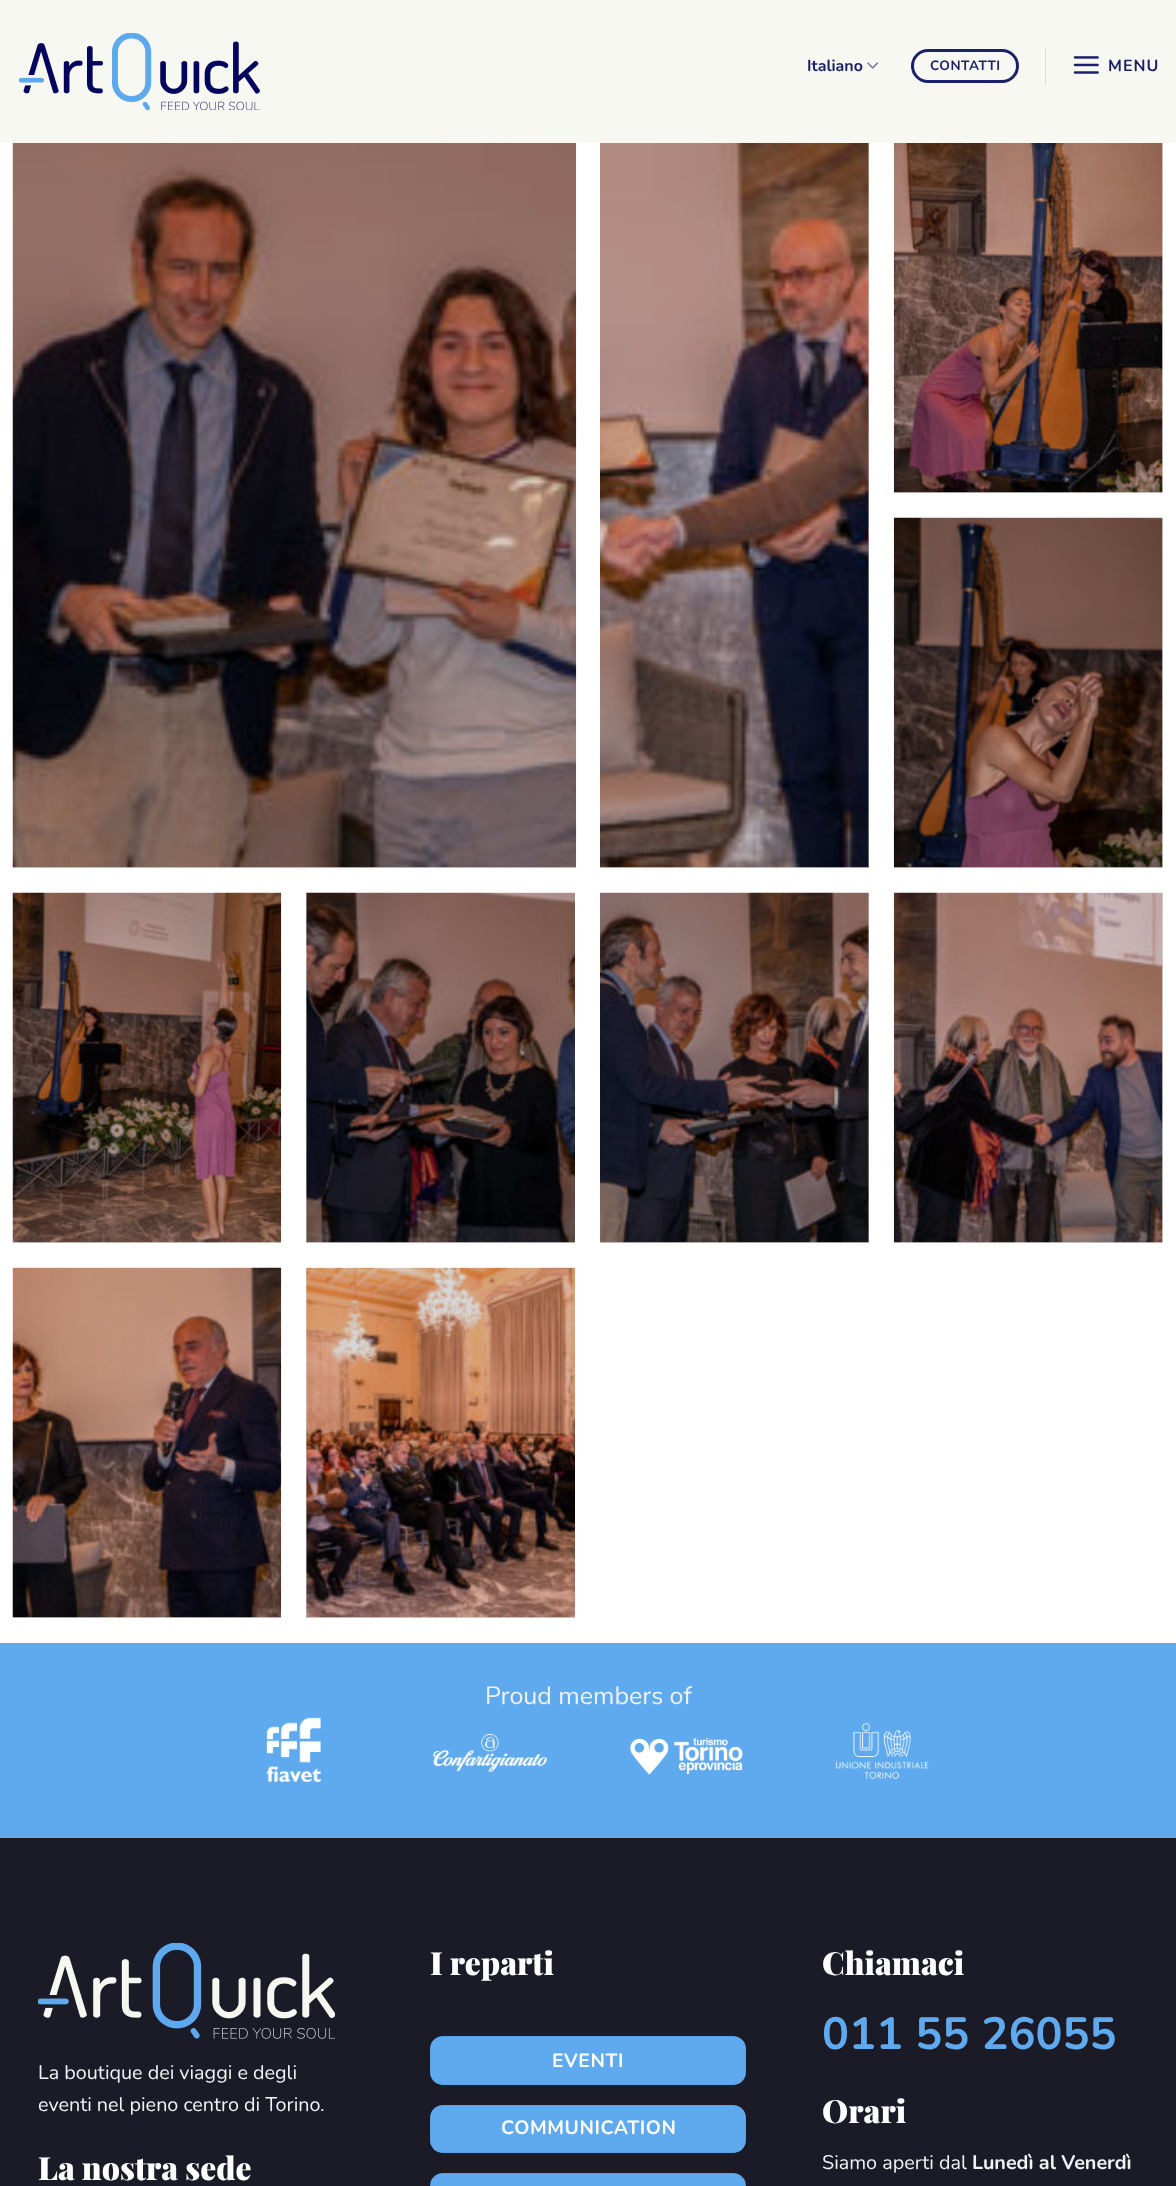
async function draw(canvas) {
  canvas.width = 1176;
  canvas.height = 2186;
  const ctx = canvas.getContext('2d');
  ctx.miterLimit = 4;
  ctx.fontKerning = 'normal';
  function label(s, x, y, font, color) {
    ctx.font = font;
    ctx.fillStyle = color;
    ctx.fillText(s, x, y);
  }
  function rect(x, y, w, h, color) {
    ctx.fillStyle = color;
    ctx.fillRect(x, y, w, h);
  }
  function roundedRect(x, y, w, h, r, color) {
    ctx.fillStyle = color;
    ctx.beginPath();
    ctx.roundRect(x, y, w, h, r);
    ctx.fill();
  }
  async function image(src, x, y, w, h) {
    const img = new Image();
    img.src = src;
    await img.decode();
    ctx.drawImage(img, x, y, w, h);
  }

  rect(0, 0, 1176, 2186, '#fff');
  rect(306, 1268, 269, 350, '#d9d9d9');
  rect(13, 1617, 268, 1, '#d9d9d9');
  rect(894, 893, 269, 350, '#d9d9d9');
  rect(600, 893, 269, 350, '#d9d9d9');
  rect(306, 893, 269, 350, '#d9d9d9');
  rect(13, 1242, 268, 1, '#d9d9d9');
  rect(894, 518, 269, 350, '#d9d9d9');
  rect(894, 143, 269, 350, '#d9d9d9');
  rect(600, 143, 269, 725, '#d9d9d9');
  rect(13, 867, 563, 1, '#d9d9d9');
  rect(0, 0, 1176, 143, '#f8f8f2');
  await image('assets/img1.png', 19, 33, 241, 77);
  label('Italiano', 807, 71, 'bold 16px Nunito', '#1c2069');
  await image('assets/img2.png', 867, 62, 12, 7);
  ctx.beginPath();
  ctx.roundRect(912.5, 50.5, 105, 31, 15.5);
  ctx.strokeStyle = '#1c2069';
  ctx.lineWidth = 3;
  ctx.stroke();
  ctx.letterSpacing = '0.5px';
  label('CONTATTI', 930, 70, 'bold 13.5px Nunito', '#1c2069');
  rect(1045, 48, 1, 37, '#dfdfda');
  await image('assets/img3.png', 1073, 56, 26, 18);
  ctx.letterSpacing = '1px';
  label('MENU', 1108, 71, 'bold 16px Nunito', '#1c2069');
  await image('assets/img4.png', 12, 143, 565, 725);
  await image('assets/img5.png', 600, 143, 269, 725);
  await image('assets/img6.png', 893, 143, 270, 350);
  await image('assets/img7.png', 893, 517, 270, 351);
  await image('assets/img8.png', 12, 892, 270, 351);
  await image('assets/img9.png', 306, 892, 269, 351);
  await image('assets/img10.png', 600, 892, 269, 351);
  await image('assets/img11.png', 893, 892, 270, 351);
  await image('assets/img12.png', 12, 1267, 270, 351);
  await image('assets/img13.png', 306, 1267, 269, 351);
  rect(0, 1643, 1176, 195, '#5faaef');
  ctx.letterSpacing = '0px';
  label('Proud members of', 485, 1704, '25px Nunito', '#f1f1f1');
  await image('assets/img14.png', 266, 1717, 55, 65);
  await image('assets/img15.png', 433, 1733, 115, 40);
  await image('assets/img16.png', 630, 1737, 113, 38);
  await image('assets/img17.png', 835, 1722, 94, 57);
  rect(0, 1838, 1176, 348, '#1b1b28');
  await image('assets/img18.png', 38, 1943, 297, 96);
  label('La boutique dei viaggi e degli', 38, 2079, '19.75px Nunito', '#f1f1f1');
  label('eventi nel pieno centro di Torino.', 38, 2111, '19.75px Nunito', '#f1f1f1');
  label('La nostra sede', 38, 2180, '900 31.75px Playfair Display', '#fff');
  label('I reparti', 430, 1975, '900 31.75px Playfair Display', '#fff');
  roundedRect(430, 2036, 316, 49, 13, '#5faaef');
  ctx.strokeStyle = '#0000000d';
  ctx.lineWidth = 1;
  ctx.strokeRect(430.5, 2036.5, 315, 48);
  ctx.letterSpacing = '0.6px';
  label('EVENTI', 552, 2067, 'bold 19.25px Nunito', '#fff');
  roundedRect(430, 2105, 316, 48, 13, '#5faaef');
  ctx.strokeRect(430.5, 2105.5, 315, 47);
  label('COMMUNICATION', 501, 2134, 'bold 19.25px Nunito', '#fff');
  roundedRect(430, 2173, 316, 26, 13, '#5faaef');
  ctx.strokeRect(430.5, 2173.5, 315, 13);
  ctx.letterSpacing = '0px';
  label('Chiamaci', 822, 1975, '900 31.75px Playfair Display', '#fff');
  label('011 55 26055', 822, 2049, 'bold 45px Nunito', '#5faaef');
  label('Orari', 822, 2123, '900 31.75px Playfair Display', '#fff');
  label('Siamo aperti dal', 822, 2169, '19.75px Nunito', '#f1f1f1');
  label('Lunedì al Venerdì', 972, 2169, 'bold 19.75px Nunito', '#f1f1f1');
}

draw(document.querySelector('canvas'));
